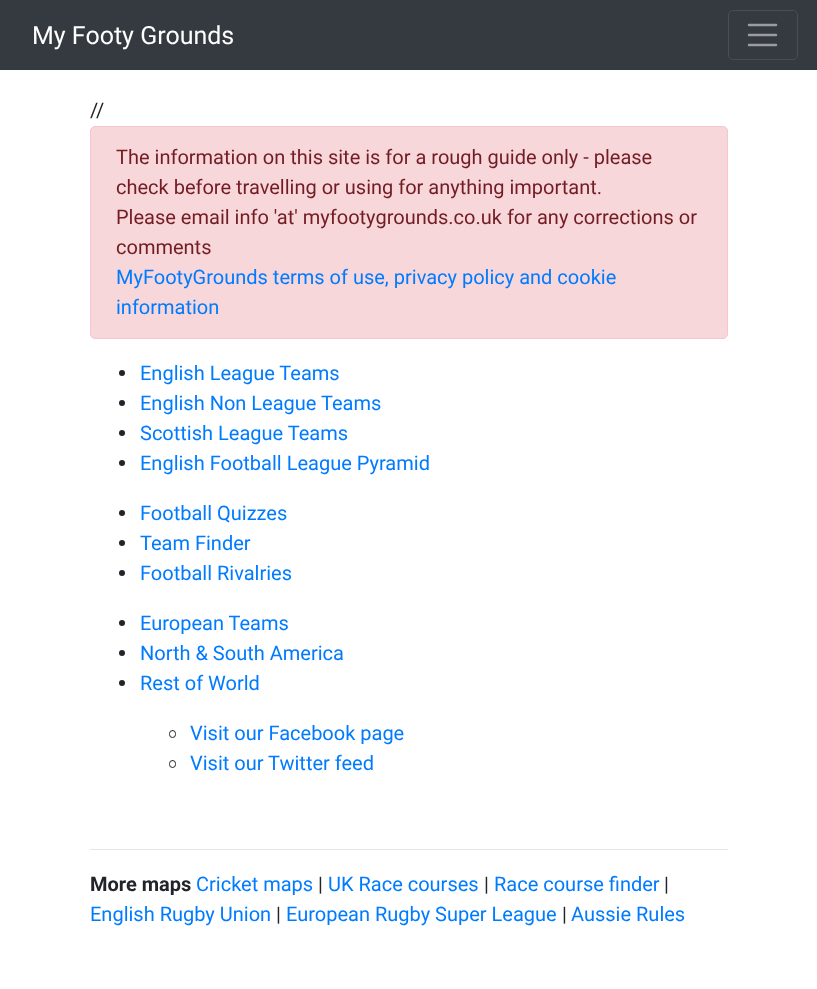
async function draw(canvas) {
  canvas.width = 817;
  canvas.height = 989;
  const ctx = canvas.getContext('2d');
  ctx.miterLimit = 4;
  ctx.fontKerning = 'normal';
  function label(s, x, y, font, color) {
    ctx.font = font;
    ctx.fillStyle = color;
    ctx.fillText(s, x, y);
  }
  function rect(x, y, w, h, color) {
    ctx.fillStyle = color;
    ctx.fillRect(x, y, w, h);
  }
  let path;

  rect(0, 0, 817, 989, '#fff');
  rect(0, 0, 817, 70, '#343a40');
  label('My Footy Grounds', 32, 44, '25px Roboto', '#fff');
  ctx.beginPath();
  ctx.roundRect(728.5, 10.5, 69, 49, 4.5);
  ctx.strokeStyle = '#484e53';
  ctx.stroke();
  path = new Path2D('M749 25H776M749 35H776M749 45H776');
  ctx.strokeStyle = '#9a9da0';
  ctx.lineWidth = 2.5;
  ctx.lineCap = 'round';
  ctx.stroke(path);
  label('//', 90, 117, '20px Roboto', '#212529');
  ctx.fillStyle = '#f8d7da';
  ctx.beginPath();
  ctx.roundRect(90.5, 126.5, 637, 212, 4.5);
  ctx.fill();
  ctx.strokeStyle = '#f5c6cb';
  ctx.lineWidth = 1;
  ctx.stroke();
  label('The information on this site is for a rough guide only - please', 116, 164, '20px Roboto', '#721c24');
  label('check before travelling or using for anything important.', 116, 194, '20px Roboto', '#721c24');
  label('Please email info \'at\' myfootygrounds.co.uk for any corrections or', 116, 224, '20px Roboto', '#721c24');
  label('comments', 116, 254, '20px Roboto', '#721c24');
  label('MyFootyGrounds terms of use, privacy policy and cookie', 116, 284, '20px Roboto', '#007bff');
  label('information', 116, 314, '20px Roboto', '#007bff');
  ctx.fillStyle = '#212529';
  ctx.beginPath();
  ctx.arc(122, 373, 3, 0, 2 * Math.PI);
  ctx.fill();
  label('English League Teams', 140, 380, '20px Roboto', '#007bff');
  ctx.fillStyle = '#212529';
  ctx.beginPath();
  ctx.arc(122, 403, 3, 0, 2 * Math.PI);
  ctx.fill();
  label('English Non League Teams', 140, 410, '20px Roboto', '#007bff');
  ctx.fillStyle = '#212529';
  ctx.beginPath();
  ctx.arc(122, 433, 3, 0, 2 * Math.PI);
  ctx.fill();
  label('Scottish League Teams', 140, 440, '20px Roboto', '#007bff');
  ctx.fillStyle = '#212529';
  ctx.beginPath();
  ctx.arc(122, 463, 3, 0, 2 * Math.PI);
  ctx.fill();
  label('English Football League Pyramid', 140, 470, '20px Roboto', '#007bff');
  ctx.fillStyle = '#212529';
  ctx.beginPath();
  ctx.arc(122, 513, 3, 0, 2 * Math.PI);
  ctx.fill();
  label('Football Quizzes', 140, 520, '20px Roboto', '#007bff');
  ctx.fillStyle = '#212529';
  ctx.beginPath();
  ctx.arc(122, 543, 3, 0, 2 * Math.PI);
  ctx.fill();
  label('Team Finder', 140, 550, '20px Roboto', '#007bff');
  ctx.fillStyle = '#212529';
  ctx.beginPath();
  ctx.arc(122, 573, 3, 0, 2 * Math.PI);
  ctx.fill();
  label('Football Rivalries', 140, 580, '20px Roboto', '#007bff');
  ctx.fillStyle = '#212529';
  ctx.beginPath();
  ctx.arc(122, 623, 3, 0, 2 * Math.PI);
  ctx.fill();
  label('European Teams', 140, 630, '20px Roboto', '#007bff');
  ctx.fillStyle = '#212529';
  ctx.beginPath();
  ctx.arc(122, 653, 3, 0, 2 * Math.PI);
  ctx.fill();
  label('North & South America', 140, 660, '20px Roboto', '#007bff');
  ctx.fillStyle = '#212529';
  ctx.beginPath();
  ctx.arc(122, 683, 3, 0, 2 * Math.PI);
  ctx.fill();
  label('Rest of World', 140, 690, '20px Roboto', '#007bff');
  ctx.beginPath();
  ctx.roundRect(169.5, 730.5, 6, 7, 3);
  ctx.strokeStyle = '#212529';
  ctx.stroke();
  label('Visit our Facebook page', 190, 740, '20px Roboto', '#007bff');
  ctx.beginPath();
  ctx.roundRect(169.5, 760.5, 6, 7, 3);
  ctx.stroke();
  label('Visit our Twitter feed', 190, 770, '20px Roboto', '#007bff');
  rect(90, 849, 638, 1, '#e6e6e6');
  label('More maps', 90, 891, 'bold 20px Roboto', '#212529');
  label('Cricket maps', 196, 891, '20px Roboto', '#007bff');
  label('|', 318, 891, '20px Roboto', '#212529');
  label('UK Race courses', 328, 891, '20px Roboto', '#007bff');
  label('|', 484, 891, '20px Roboto', '#212529');
  label('Race course finder', 494, 891, '20px Roboto', '#007bff');
  label('|', 664, 891, '20px Roboto', '#212529');
  label('English Rugby Union', 90, 921, '20px Roboto', '#007bff');
  label('|', 276, 921, '20px Roboto', '#212529');
  label('European Rugby Super League', 286, 921, '20px Roboto', '#007bff');
  label('|', 562, 921, '20px Roboto', '#212529');
  label('Aussie Rules', 571, 921, '20px Roboto', '#007bff');
}

draw(document.querySelector('canvas'));
